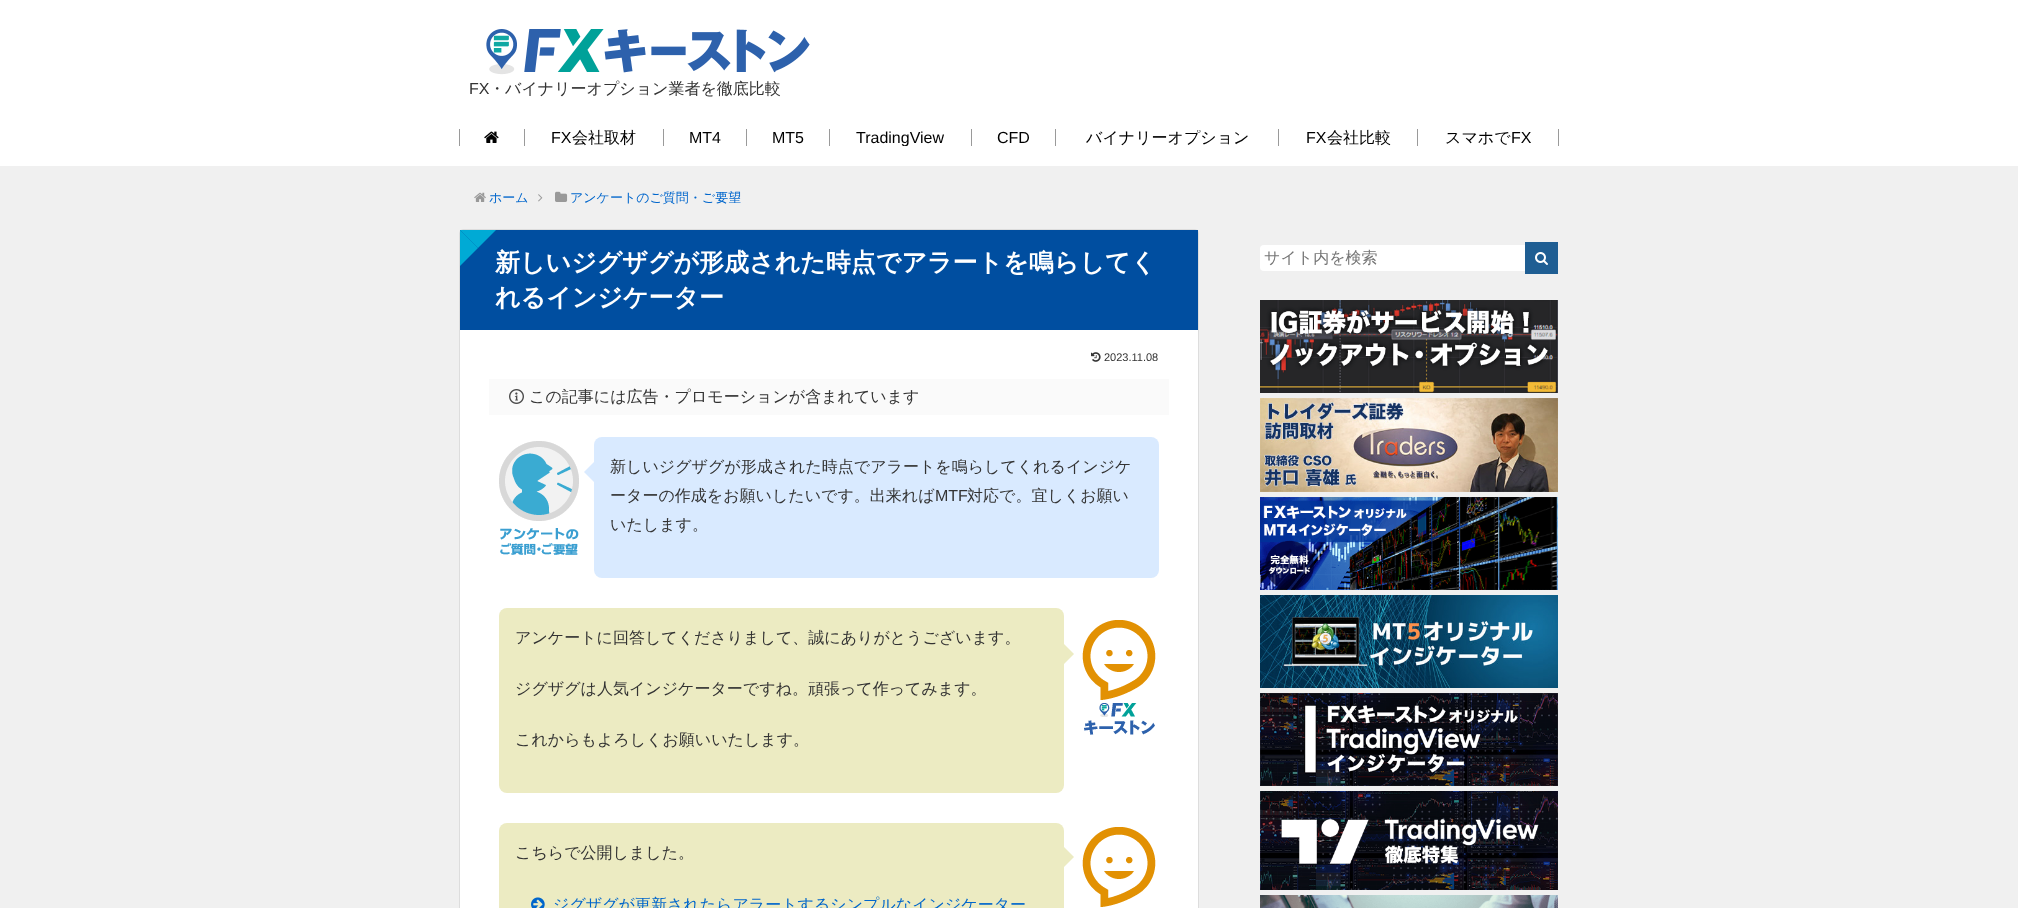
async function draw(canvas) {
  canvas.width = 2018;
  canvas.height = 908;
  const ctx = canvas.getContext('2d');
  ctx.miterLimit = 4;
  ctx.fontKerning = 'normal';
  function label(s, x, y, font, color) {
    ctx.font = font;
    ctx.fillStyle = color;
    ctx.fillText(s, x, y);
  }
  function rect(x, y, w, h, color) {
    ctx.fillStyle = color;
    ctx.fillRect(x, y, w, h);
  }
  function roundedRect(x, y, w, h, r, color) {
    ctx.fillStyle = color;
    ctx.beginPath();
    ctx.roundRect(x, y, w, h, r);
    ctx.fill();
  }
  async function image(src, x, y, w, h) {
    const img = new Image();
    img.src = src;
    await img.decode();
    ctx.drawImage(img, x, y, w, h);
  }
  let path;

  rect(0, 0, 2018, 908, '#f0f0f0');
  rect(0, 0, 2018, 166, '#fff');
  await image('assets/img1.png', 486, 29, 324, 46);
  label('FX', 469, 94, '16px Liberation Sans', '#333');
  label('・バイナリーオプション業者を徹底比較', 489, 94, '500 16px WenQuanYi Zen Hei', '#333');
  rect(459, 129, 1, 17, '#9a9a9a');
  rect(524, 129, 1, 17, '#9a9a9a');
  await image('assets/img2.png', 484, 131, 15, 12);
  rect(663, 129, 1, 17, '#9a9a9a');
  label('FX', 551, 143, '16px Liberation Sans', '#000');
  label('会社取材', 572, 143, '500 16px WenQuanYi Zen Hei', '#000');
  rect(746, 129, 1, 17, '#9a9a9a');
  label('MT4', 689, 143, '16px Liberation Sans', '#000');
  rect(829, 129, 1, 17, '#9a9a9a');
  label('MT5', 772, 143, '16px Liberation Sans', '#000');
  rect(971, 129, 1, 17, '#9a9a9a');
  ctx.save();
  ctx.beginPath();
  ctx.rect(852, 130, 97, 16);
  ctx.clip();
  label('TradingView', 856, 143, '16px Liberation Sans', '#000');
  ctx.restore();
  rect(1055, 129, 1, 17, '#9a9a9a');
  label('CFD', 997, 143, '16px Liberation Sans', '#000');
  rect(1278, 129, 1, 17, '#9a9a9a');
  ctx.save();
  ctx.beginPath();
  ctx.rect(1079, 130, 177, 16);
  ctx.clip();
  label('バイナリーオプション', 1086, 143, '500 16px WenQuanYi Zen Hei', '#000');
  ctx.restore();
  rect(1417, 129, 1, 17, '#9a9a9a');
  label('FX', 1306, 143, '16px Liberation Sans', '#000');
  label('会社比較', 1327, 143, '500 16px WenQuanYi Zen Hei', '#000');
  rect(1558, 129, 1, 17, '#9a9a9a');
  label('スマホで', 1445, 143, '500 16px WenQuanYi Zen Hei', '#000');
  label('FX', 1511, 143, '16px Liberation Sans', '#000');
  await image('assets/img3.png', 474, 192, 12, 10);
  label('ホーム', 489, 202, '500 13px WenQuanYi Zen Hei', '#06c');
  await image('assets/img4.png', 538, 194, 5, 8);
  await image('assets/img5.png', 555, 191, 13, 11);
  label('アンケートのご質問・ご要望', 570, 202, '500 13px WenQuanYi Zen Hei', '#06c');
  ctx.fillStyle = '#fff';
  ctx.beginPath();
  ctx.roundRect(459.5, 229.5, 739, 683, 3.5);
  ctx.fill();
  ctx.strokeStyle = '#ddd';
  ctx.stroke();
  rect(460, 230, 738, 100, '#004ea0');
  ctx.fillStyle = '#00aad5';
  path = new Path2D('M460 230H496L478 248Z');
  ctx.fill(path);
  path = new Path2D('M460 266V230L478 248Z');
  ctx.fill(path);
  label('新しいジグザグが形成された時点でアラートを鳴らしてく', 495, 271, 'bold 25px WenQuanYi Zen Hei', '#fff');
  label('れるインジケーター', 495, 306, 'bold 25px WenQuanYi Zen Hei', '#fff');
  await image('assets/img6.png', 1091, 352, 10, 10);
  label('2023.11.08', 1104, 361, '11px Liberation Sans', '#333');
  rect(489, 379, 680, 36, '#fafafa');
  await image('assets/img7.png', 509, 389, 15, 15);
  label('この記事には広告・プロモーションが含まれています', 529, 402, '500 16px WenQuanYi Zen Hei', '#333');
  await image('assets/img8.png', 499, 441, 80, 114);
  roundedRect(594, 437, 565, 141, 8, '#d9eaff');
  path = new Path2D('M594 462V482L584 472Z');
  ctx.fill(path);
  label('新しいジグザグが形成された時点でアラートを鳴らしてくれるインジケ', 610, 472, '500 16px WenQuanYi Zen Hei', '#333');
  label('ーターの作成をお願いしたいです。出来れば', 610, 501, '500 16px WenQuanYi Zen Hei', '#333');
  label('MTF', 935, 501, '16px Liberation Sans', '#333');
  label('対応で。宜しくお願い', 967, 501, '500 16px WenQuanYi Zen Hei', '#333');
  label('いたします。', 610, 530, '500 16px WenQuanYi Zen Hei', '#333');
  await image('assets/img9.png', 1082, 620, 74, 115);
  roundedRect(499, 608, 565, 185, 8, '#ecebc2');
  label('アンケートに回答してくださりまして、誠にありがとうございます。', 515, 643, '500 16px WenQuanYi Zen Hei', '#333');
  ctx.fillStyle = '#ecebc2';
  path = new Path2D('M1064 664V644L1074 654Z');
  ctx.fill(path);
  label('ジグザグは人気インジケーターですね。頑張って作ってみます。', 515, 694, '500 16px WenQuanYi Zen Hei', '#333');
  label('これからもよろしくお願いいたします。', 515, 745, '500 16px WenQuanYi Zen Hei', '#333');
  await image('assets/img10.png', 1082, 827, 74, 80);
  roundedRect(499, 823, 565, 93, 8, '#ecebc2');
  label('こちらで公開しました。', 515, 858, '500 16px WenQuanYi Zen Hei', '#333');
  ctx.fillStyle = '#ecebc2';
  path = new Path2D('M1064 867V847L1074 857Z');
  ctx.fill(path);
  await image('assets/img11.png', 531, 897, 14, 11);
  label('ジグザグが更新されたらアラートするシンプルなインジケーター', 553, 910, '500 16px WenQuanYi Zen Hei', '#06c');
  roundedRect(1260, 245, 298, 26, 4, '#fff');
  label('サイト内を検索', 1264, 263, '500 16px WenQuanYi Zen Hei', '#757575');
  rect(1525, 242, 33, 32, '#1f5e93');
  await image('assets/img12.png', 1535, 252, 13, 13);
  await image('assets/img13.png', 1260, 300, 298, 93);
  await image('assets/img14.png', 1260, 398, 298, 94);
  await image('assets/img15.png', 1260, 497, 298, 93);
  await image('assets/img16.png', 1260, 595, 298, 93);
  await image('assets/img17.png', 1260, 693, 298, 93);
  await image('assets/img18.png', 1260, 791, 298, 99);
  await image('assets/img19.png', 1260, 895, 298, 13);
}

draw(document.querySelector('canvas'));
